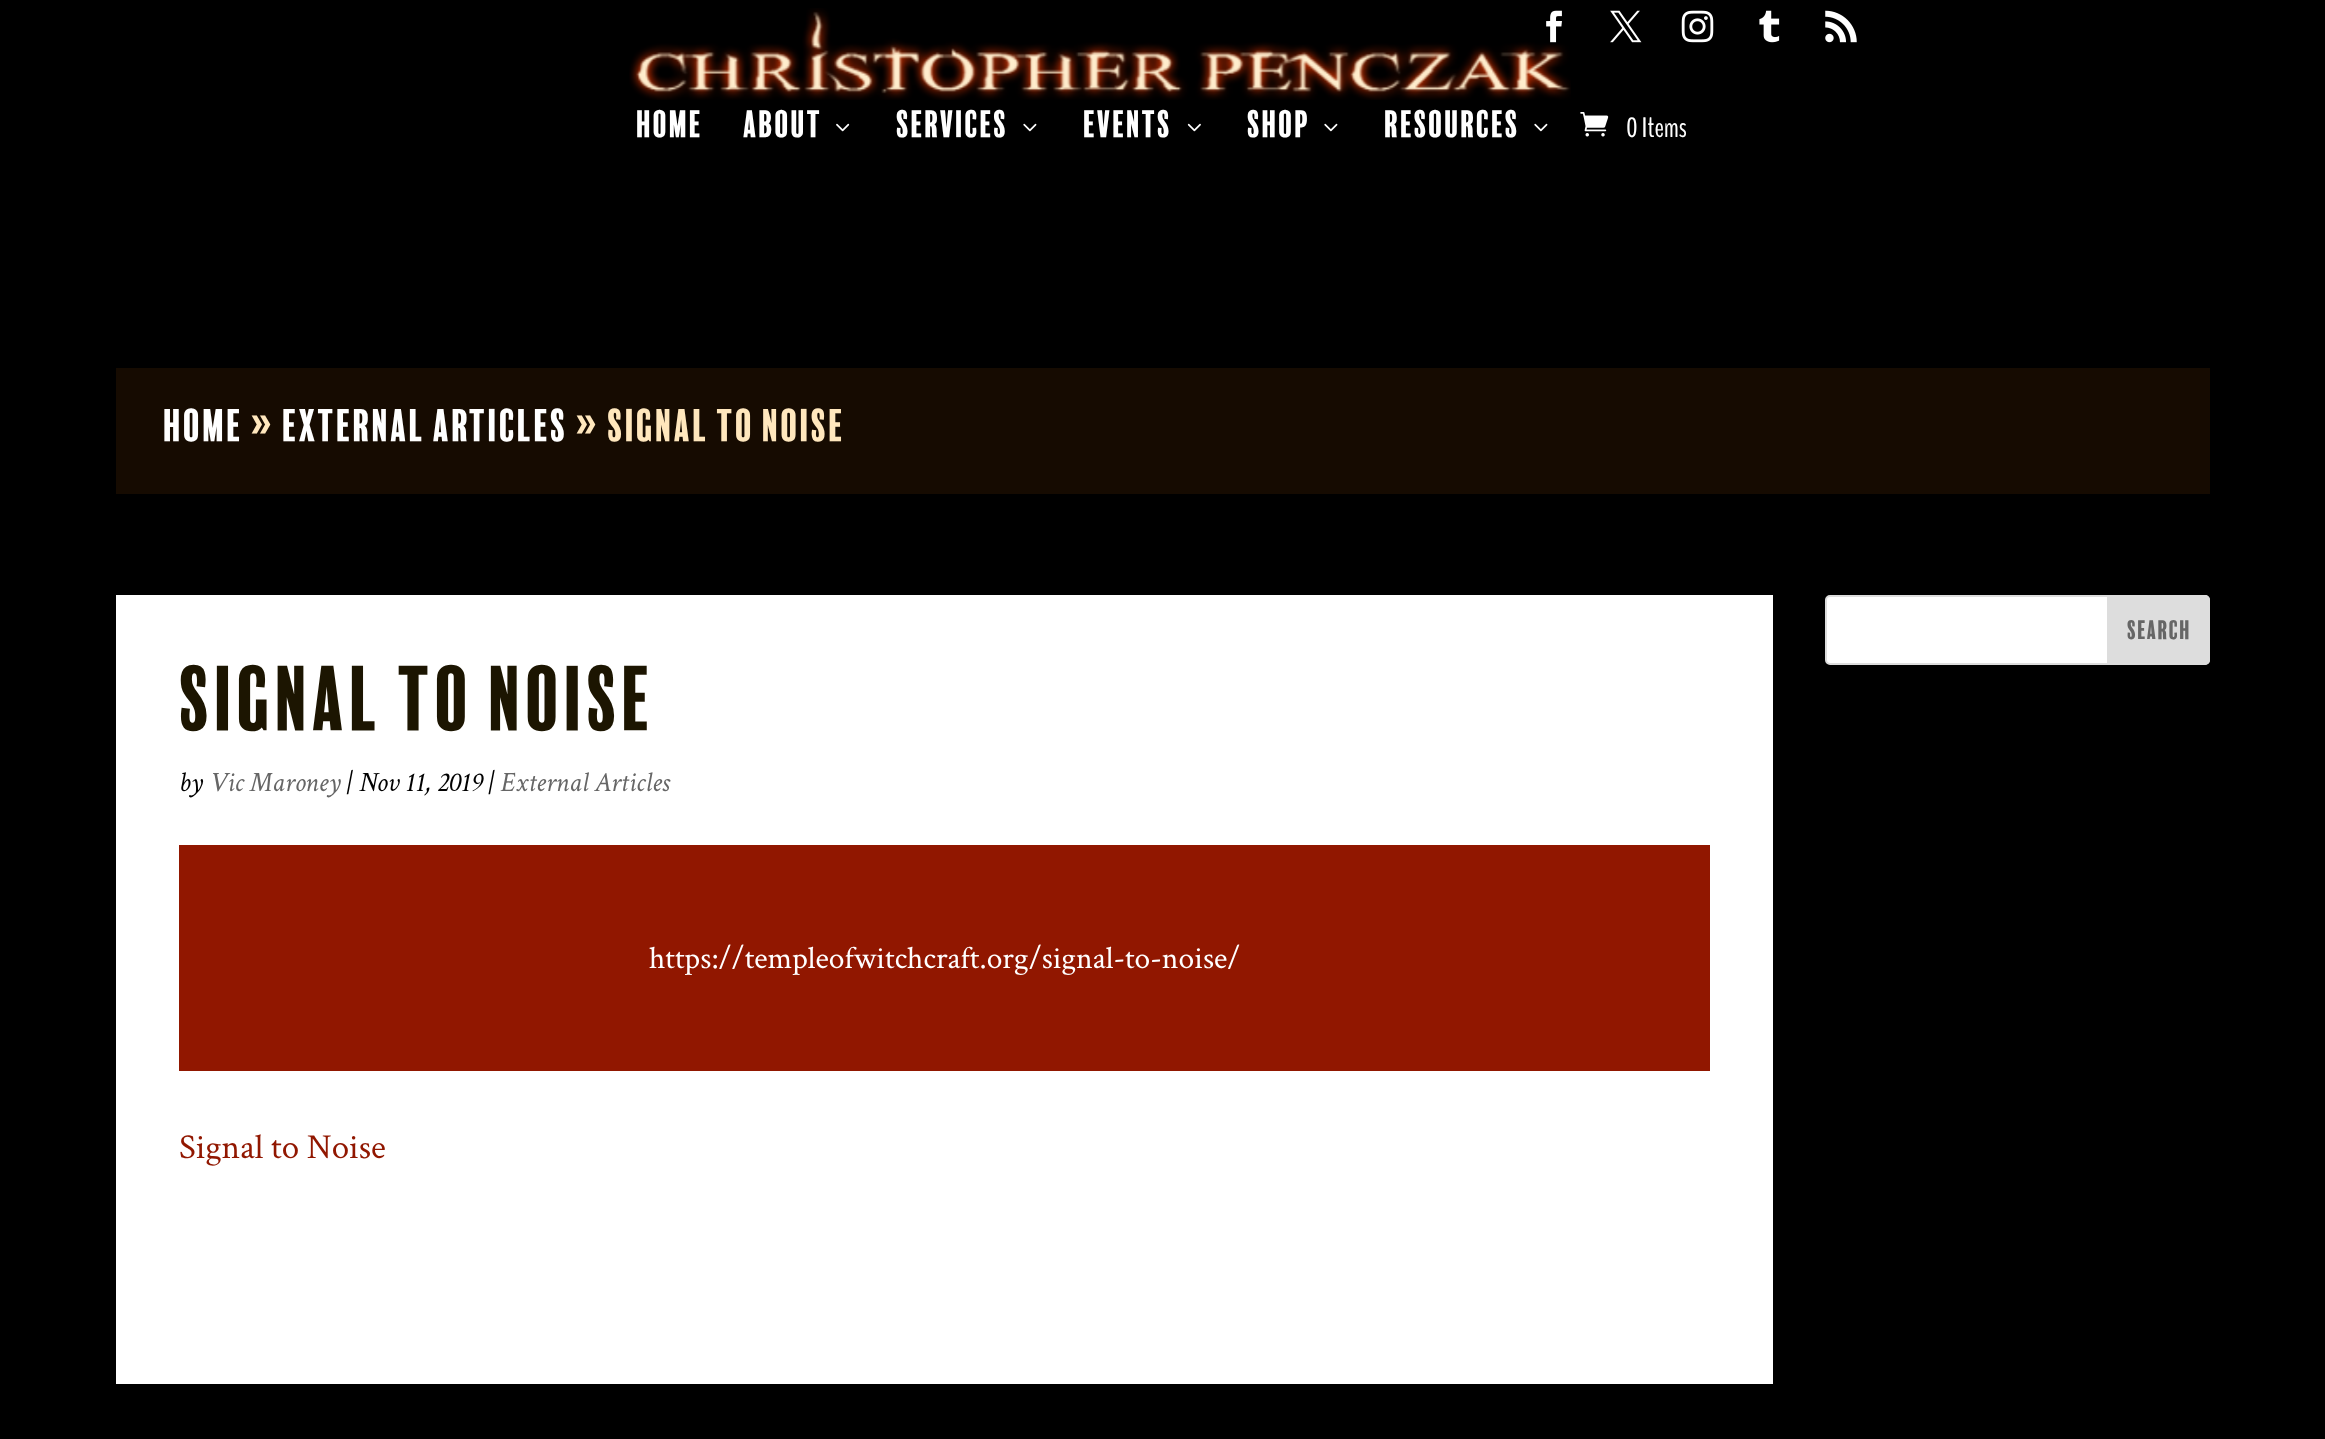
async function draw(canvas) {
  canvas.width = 2325;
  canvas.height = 1439;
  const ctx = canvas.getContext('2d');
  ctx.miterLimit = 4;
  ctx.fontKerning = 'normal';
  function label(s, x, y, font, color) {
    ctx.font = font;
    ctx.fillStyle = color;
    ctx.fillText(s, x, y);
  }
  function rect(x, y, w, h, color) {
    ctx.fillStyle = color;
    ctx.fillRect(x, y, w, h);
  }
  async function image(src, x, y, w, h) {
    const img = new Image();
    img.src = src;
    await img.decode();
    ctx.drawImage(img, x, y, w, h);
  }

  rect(0, 0, 2325, 1439, '#000');
  await image('assets/img1.png', 629, 8, 942, 92);
  await image('assets/img2.png', 1546, 10, 16, 33);
  await image('assets/img3.png', 1610, 10, 32, 33);
  await image('assets/img4.png', 1681, 10, 33, 33);
  await image('assets/img5.png', 1759, 10, 21, 33);
  await image('assets/img6.png', 1825, 10, 32, 33);
  label('HOME', 636, 137, '35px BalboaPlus', '#fff');
  label('ABOUT', 743, 137, '35px BalboaPlus', '#fff');
  await image('assets/img7.png', 836, 123, 14, 9);
  label('SERVICES', 896, 137, '35px BalboaPlus', '#fff');
  await image('assets/img8.png', 1023, 123, 14, 9);
  label('EVENTS', 1083, 137, '35px BalboaPlus', '#fff');
  await image('assets/img9.png', 1187, 123, 14, 9);
  label('SHOP', 1247, 137, '35px BalboaPlus', '#fff');
  await image('assets/img8.png', 1324, 123, 14, 9);
  label('RESOURCES', 1384, 137, '35px BalboaPlus', '#fff');
  await image('assets/img8.png', 1534, 123, 14, 9);
  await image('assets/img10.png', 1580, 112, 29, 25);
  label('0 Items', 1626, 137, '28px BenchNine', '#fff');
  rect(116, 368, 2094, 126, '#160b01');
  label('Home', 163, 441, '42px BalboaPlus', '#fff');
  label('»', 250, 441, '42px BalboaPlus', '#ffe7bd');
  label('External Articles', 282, 441, '42px BalboaPlus', '#fff');
  label('» Signal to Noise', 575, 441, '42px BalboaPlus', '#ffe7bd');
  ctx.fillStyle = '#fff';
  ctx.beginPath();
  ctx.roundRect(1826, 596, 383, 68, 4);
  ctx.fill();
  ctx.strokeStyle = '#ddd';
  ctx.lineWidth = 2;
  ctx.stroke();
  ctx.fillStyle = '#ddd';
  ctx.beginPath();
  ctx.roundRect(2108, 596, 101, 68, [0, 4, 4, 0]);
  ctx.fill();
  ctx.stroke();
  label('Search', 2127, 639, '24.5px BalboaPlus', '#666');
  rect(116, 595, 1657, 789, '#fff');
  label('Signal to Noise', 179, 730, '84px BalboaPlus', '#1c1501');
  label('by', 179, 791, 'italic 28px Crimson Text', '#000');
  label('Vic Maroney', 210, 791, 'italic 28px Crimson Text', '#666');
  label('| Nov 11, 2019 |', 347, 791, 'italic 28px Crimson Text', '#000');
  label('External Articles', 500, 791, 'italic 28px Crimson Text', '#666');
  rect(179, 845, 1531, 226, '#911700');
  label('https://templeofwitchcraft.org/signal-to-noise/', 649, 968, '31.5px Crimson Text', '#fff');
  label('Signal to Noise', 179, 1158, '35px Crimson Text', '#911700');
}

draw(document.querySelector('canvas'));
